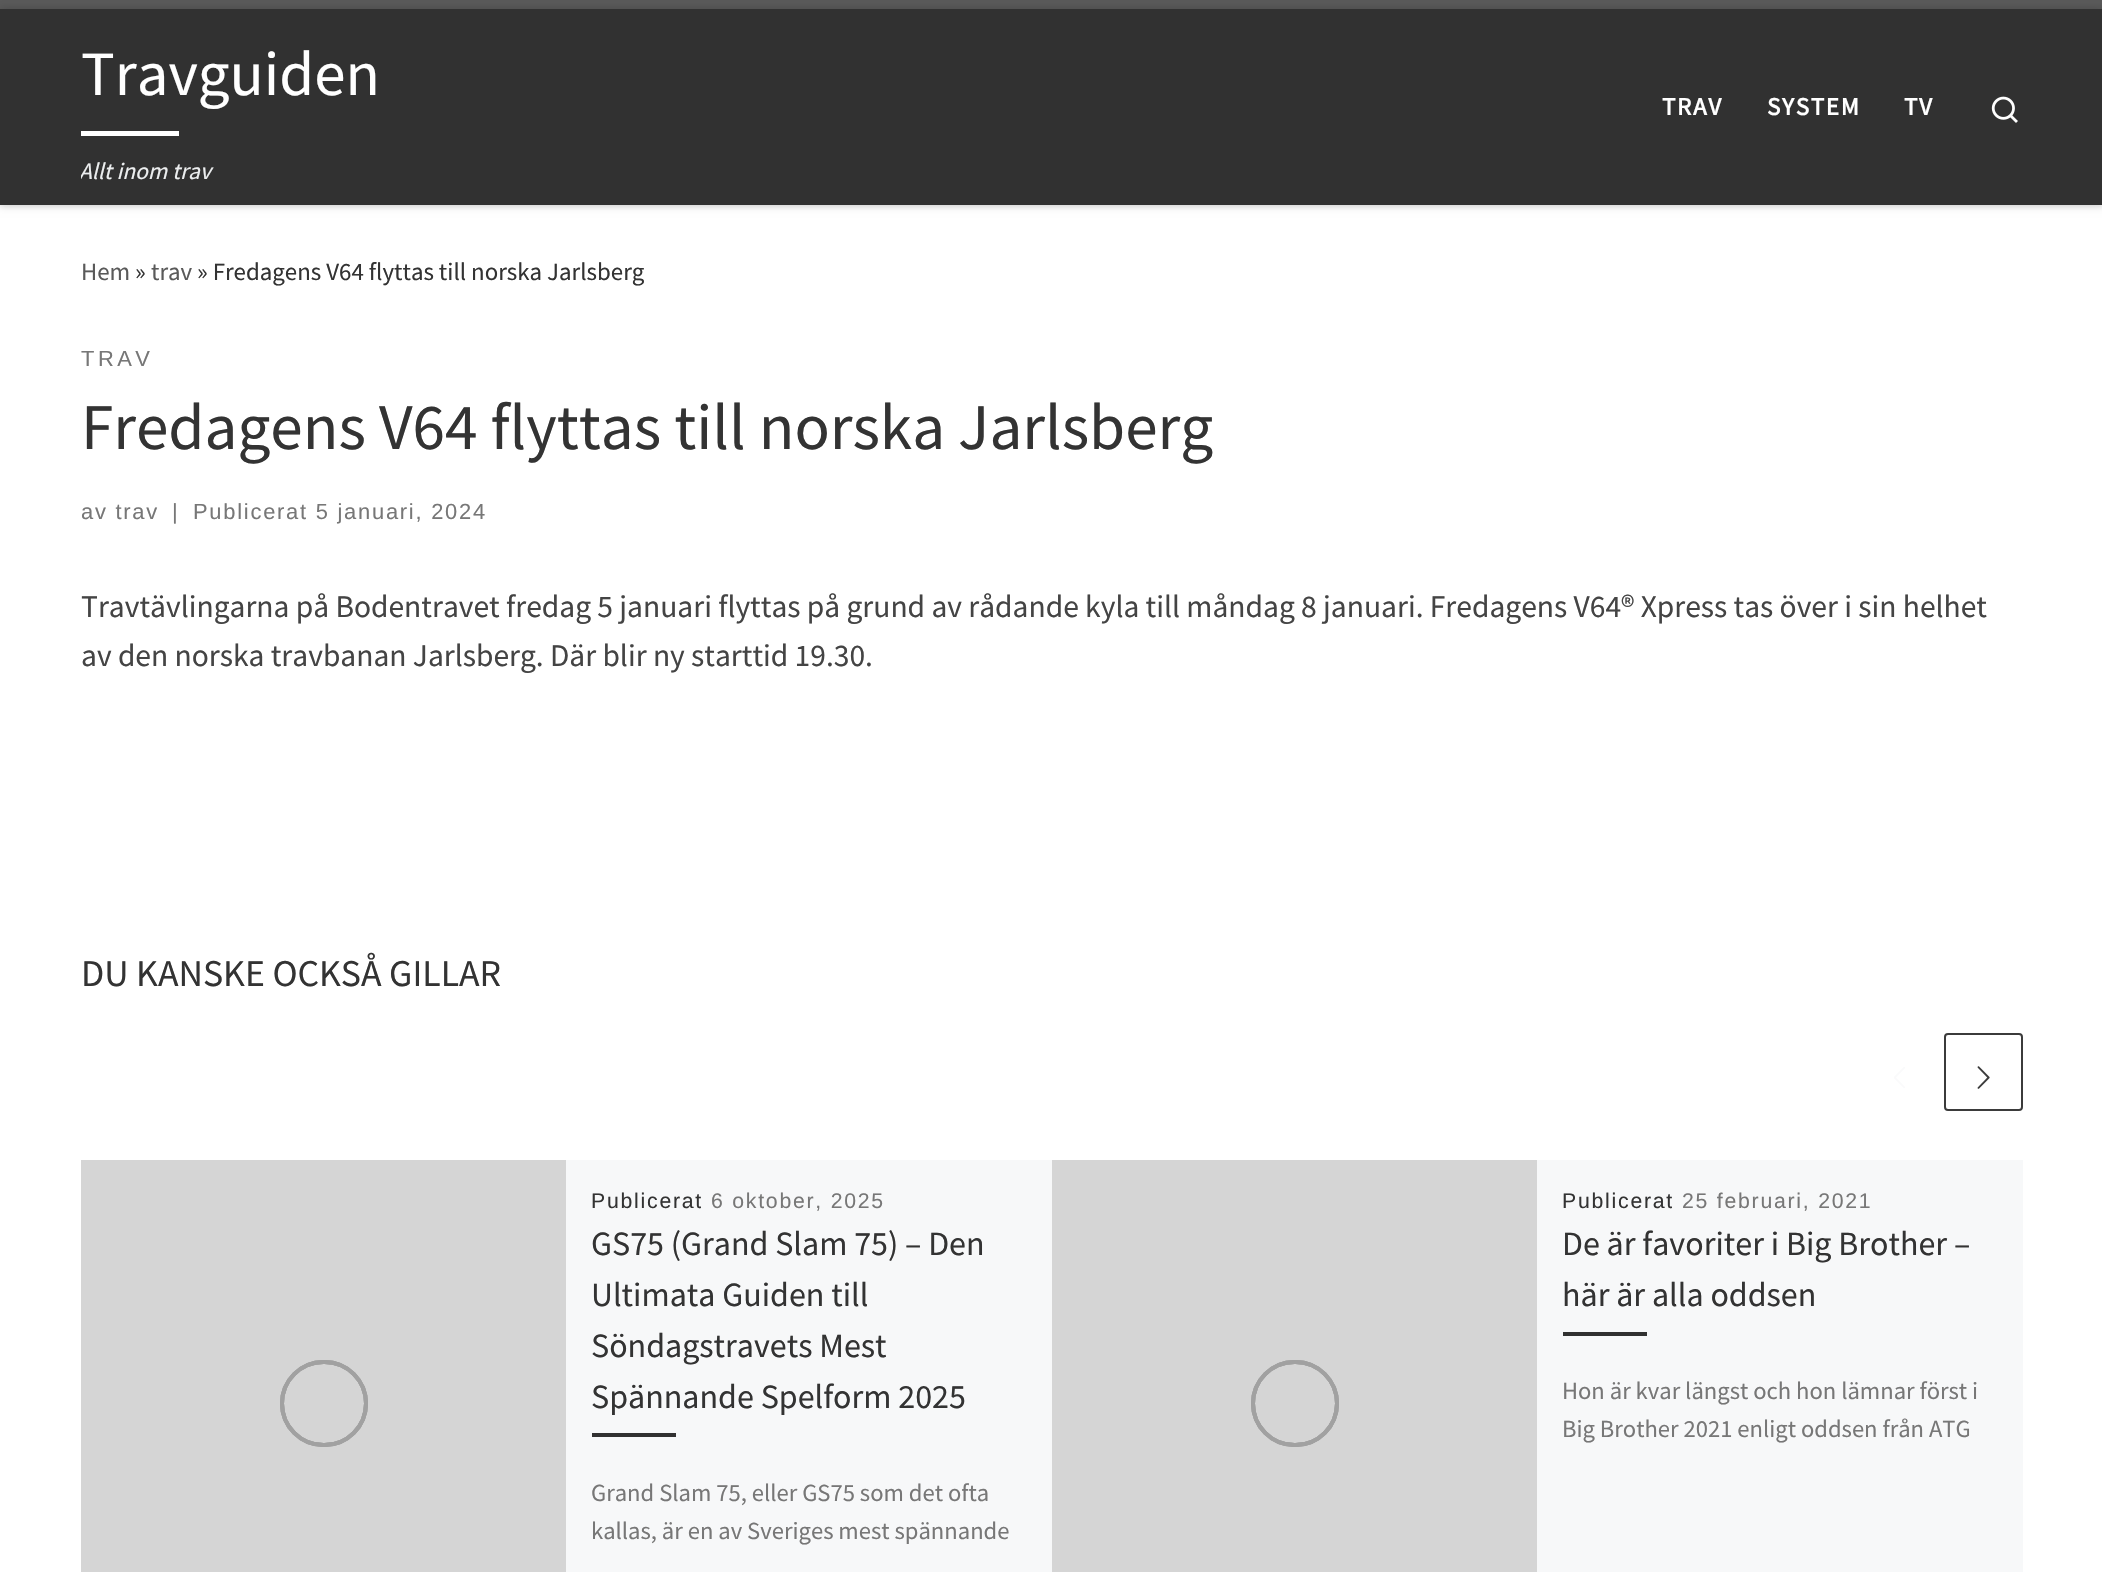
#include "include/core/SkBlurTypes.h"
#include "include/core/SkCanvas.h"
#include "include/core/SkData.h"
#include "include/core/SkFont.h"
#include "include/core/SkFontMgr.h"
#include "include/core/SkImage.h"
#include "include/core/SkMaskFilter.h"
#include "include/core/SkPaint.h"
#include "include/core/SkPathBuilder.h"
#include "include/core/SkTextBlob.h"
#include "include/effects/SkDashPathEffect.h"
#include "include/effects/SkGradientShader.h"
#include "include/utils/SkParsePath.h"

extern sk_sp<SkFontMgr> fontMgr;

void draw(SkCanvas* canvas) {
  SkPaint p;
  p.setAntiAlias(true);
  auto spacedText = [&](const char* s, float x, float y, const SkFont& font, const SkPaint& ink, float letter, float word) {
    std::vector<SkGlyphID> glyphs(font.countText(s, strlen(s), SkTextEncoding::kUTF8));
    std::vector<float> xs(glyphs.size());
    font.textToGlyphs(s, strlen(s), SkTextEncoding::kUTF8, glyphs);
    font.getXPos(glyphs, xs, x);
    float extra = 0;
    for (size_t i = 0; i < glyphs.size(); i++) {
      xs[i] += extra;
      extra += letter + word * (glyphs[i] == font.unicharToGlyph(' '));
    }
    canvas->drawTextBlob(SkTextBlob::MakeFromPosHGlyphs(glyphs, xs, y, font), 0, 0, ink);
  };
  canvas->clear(SK_ColorWHITE);
  p.setColor(SkColorSetARGB(20, 102, 102, 102));
  p.setMaskFilter(SkMaskFilter::MakeBlur(kNormal_SkBlurStyle, 2));
  canvas->drawRect(SkRect::MakeLTRB(0, 4, 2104, 207), p);
  p.setMaskFilter(nullptr);
  p.setColor(SkColorSetRGB(90, 90, 90));
  canvas->drawRect(SkRect::MakeLTRB(0, 0, 2102, 9), p);
  p.setColor(SkColorSetARGB(51, 0, 0, 0));
  p.setMaskFilter(SkMaskFilter::MakeBlur(kNormal_SkBlurStyle, 4.5f));
  canvas->drawRect(SkRect::MakeLTRB(0, 9, 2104, 205), p);
  p.setMaskFilter(nullptr);
  p.setColor(SkColorSetRGB(49, 49, 49));
  canvas->drawRect(SkRect::MakeLTRB(0, 9, 2102, 205), p);
  p.setColor(SK_ColorWHITE);
  canvas->drawRect(SkRect::MakeLTRB(81, 131, 179, 136), p);
  canvas->drawImageRect(SkImages::DeferredFromEncodedData(SkData::MakeFromFileName("images/1.png")), SkRect::MakeLTRB(1991, 96, 2018, 123), SkSamplingOptions());
  canvas->drawImageRect(SkImages::DeferredFromEncodedData(SkData::MakeFromFileName("images/2.png")), SkRect::MakeLTRB(1894, 1067, 1905, 1088), SkSamplingOptions());
  p.setStyle(SkPaint::kStroke_Style);
  p.setStrokeWidth(2);
  p.setColor(SkColorSetRGB(59, 59, 59));
  canvas->drawRoundRect(SkRect::MakeLTRB(1945, 1034, 2022, 1110), 3, 3, p);
  canvas->drawImageRect(SkImages::DeferredFromEncodedData(SkData::MakeFromFileName("images/3.png")), SkRect::MakeLTRB(1977, 1066, 1990, 1089), SkSamplingOptions());
  p.setStyle(SkPaint::kFill_Style);
  p.setColor(SkColorSetRGB(247, 248, 249));
  canvas->drawRect(SkRect::MakeLTRB(566, 1160, 1052, 1572), p);
  p.setColor(SkColorSetRGB(213, 213, 213));
  canvas->drawRect(SkRect::MakeLTRB(81, 1160, 566, 1572), p);
  p.setStyle(SkPaint::kStroke_Style);
  p.setStrokeWidth(4);
  p.setColor(SkColorSetRGB(161, 161, 161));
  canvas->drawRoundRect(SkRect::MakeLTRB(282, 1362, 366, 1445), 41.5f, 41.5f, p);
  canvas->drawRoundRect(SkRect::MakeLTRB(282, 1362, 366, 1445), 41.5f, 41.5f, p);
  canvas->drawRoundRect(SkRect::MakeLTRB(282, 1362, 366, 1445), 41.5f, 41.5f, p);
  p.setStyle(SkPaint::kFill_Style);
  p.setColor(SkColorSetRGB(49, 49, 49));
  canvas->drawRect(SkRect::MakeLTRB(592, 1433, 676, 1437), p);
  p.setColor(SkColorSetRGB(247, 248, 249));
  canvas->drawRect(SkRect::MakeLTRB(1537, 1160, 2023, 1572), p);
  p.setColor(SkColorSetRGB(213, 213, 213));
  canvas->drawRect(SkRect::MakeLTRB(1052, 1160, 1537, 1572), p);
  p.setStyle(SkPaint::kStroke_Style);
  p.setColor(SkColorSetRGB(161, 161, 161));
  canvas->drawRoundRect(SkRect::MakeLTRB(1253, 1362, 1337, 1445), 41.5f, 41.5f, p);
  canvas->drawRoundRect(SkRect::MakeLTRB(1253, 1362, 1337, 1445), 41.5f, 41.5f, p);
  canvas->drawRoundRect(SkRect::MakeLTRB(1253, 1362, 1337, 1445), 41.5f, 41.5f, p);
  p.setStyle(SkPaint::kFill_Style);
  p.setColor(SkColorSetRGB(49, 49, 49));
  canvas->drawRect(SkRect::MakeLTRB(1563, 1332, 1647, 1336), p);
  SkFont font1(fontMgr->matchFamilyStyle("Source Sans Pro", SkFontStyle::Normal()), 63);
  font1.setSubpixel(true);
  p.setColor(SK_ColorWHITE);
  canvas->drawString("Travguiden", 81, 95, font1, p);
  canvas->save();
  canvas->clipRect(SkRect::MakeLTRB(81, 9, 380, 205));
  SkFont font2(fontMgr->matchFamilyStyle("Source Sans Pro", SkFontStyle::Italic()), 23.5f);
  font2.setSubpixel(true);
  p.setColor(SkColorSetRGB(236, 238, 239));
  canvas->drawString("Allt inom trav", 79, 179, font2, p);
  canvas->restore();
  SkFont font3(fontMgr->matchFamilyStyle("Source Sans Pro", SkFontStyle::Bold()), 24.9f);
  font3.setSubpixel(true);
  p.setColor(SK_ColorWHITE);
  spacedText("TRAV", 1662, 115, font3, p, 1.75f, 0);
  spacedText("SYSTEM", 1767, 115, font3, p, 1.75f, 0);
  spacedText("TV", 1904, 115, font3, p, 1.75f, 0);
  SkFont font4(fontMgr->matchFamilyStyle("Source Sans Pro", SkFontStyle::Normal()), 24.9f);
  font4.setSubpixel(true);
  p.setColor(SkColorSetRGB(90, 90, 90));
  canvas->drawString("Hem", 81, 280, font4, p);
  p.setColor(SkColorSetRGB(51, 51, 51));
  canvas->drawString("»", 135, 280, font4, p);
  p.setColor(SkColorSetRGB(90, 90, 90));
  canvas->drawString("trav", 151, 280, font4, p);
  p.setColor(SkColorSetRGB(51, 51, 51));
  canvas->drawString("» Fredagens V64 flyttas till norska Jarlsberg", 197, 280, font4, p);
  SkFont font5(fontMgr->matchFamilyStyle("Liberation Sans", SkFontStyle::Normal()), 21.9f);
  font5.setSubpixel(true);
  p.setColor(SkColorSetRGB(119, 119, 119));
  spacedText("TRAV", 81, 366, font5, p, 3.5f, 0);
  SkFont font6(fontMgr->matchFamilyStyle("Source Sans Pro", SkFontStyle::Normal()), 65.3f);
  font6.setSubpixel(true);
  p.setColor(SkColorSetRGB(51, 51, 51));
  canvas->drawString("Fredagens V64 flyttas till norska Jarlsberg", 81, 449, font6, p);
  p.setColor(SkColorSetRGB(119, 119, 119));
  spacedText("av trav", 81, 519, font5, p, 1.75f, 0);
  spacedText("|", 172, 519, font5, p, 1.75f, 0);
  spacedText("Publicerat 5 januari, 2024", 193, 519, font5, p, 1.75f, 0);
  SkFont font7(fontMgr->matchFamilyStyle("Source Sans Pro", SkFontStyle::Normal()), 31.5f);
  font7.setSubpixel(true);
  p.setColor(SkColorSetRGB(68, 68, 68));
  canvas->drawString("Travtävlingarna på Bodentravet fredag 5 januari flyttas på grund av rådande kyla till måndag 8 januari. Fredagens V64® Xpress tas över i sin helhet", 81, 617, font7, p);
  canvas->drawString("av den norska travbanan Jarlsberg. Där blir ny starttid 19.30.", 81, 666, font7, p);
  SkFont font8(fontMgr->matchFamilyStyle("Source Sans Pro", SkFontStyle::Normal()), 37.75f);
  font8.setSubpixel(true);
  p.setColor(SkColorSetRGB(51, 51, 51));
  canvas->drawString("DU KANSKE OCKSÅ GILLAR", 81, 986, font8, p);
  SkFont font9(fontMgr->matchFamilyStyle("Liberation Sans", SkFontStyle::Normal()), 21.25f);
  font9.setSubpixel(true);
  spacedText("Publicerat", 591, 1208, font9, p, 1.75f, 0);
  p.setColor(SkColorSetRGB(119, 119, 119));
  spacedText("6 oktober, 2025", 711, 1208, font9, p, 1.75f, 0);
  SkFont font10(fontMgr->matchFamilyStyle("Source Sans Pro", SkFontStyle::Normal()), 34);
  font10.setSubpixel(true);
  p.setColor(SkColorSetRGB(51, 51, 51));
  canvas->drawString("GS75 (Grand Slam 75) – Den", 591, 1255, font10, p);
  canvas->drawString("Ultimata Guiden till", 591, 1306, font10, p);
  canvas->drawString("Söndagstravets Mest", 591, 1357, font10, p);
  canvas->drawString("Spännande Spelform 2025", 591, 1408, font10, p);
  SkFont font11(fontMgr->matchFamilyStyle("Source Sans Pro", SkFontStyle::Normal()), 24.6f);
  font11.setSubpixel(true);
  p.setColor(SkColorSetRGB(119, 119, 119));
  canvas->drawString("Grand Slam 75, eller GS75 som det ofta", 591, 1501, font11, p);
  canvas->drawString("kallas, är en av Sveriges mest spännande", 591, 1539, font11, p);
  p.setColor(SkColorSetRGB(51, 51, 51));
  spacedText("Publicerat", 1562, 1208, font9, p, 1.75f, 0);
  p.setColor(SkColorSetRGB(119, 119, 119));
  spacedText("25 februari, 2021", 1682, 1208, font9, p, 1.75f, 0);
  p.setColor(SkColorSetRGB(51, 51, 51));
  canvas->drawString("De är favoriter i Big Brother –", 1562, 1255, font10, p);
  canvas->drawString("här är alla oddsen", 1562, 1306, font10, p);
  p.setColor(SkColorSetRGB(119, 119, 119));
  canvas->drawString("Hon är kvar längst och hon lämnar först i", 1562, 1399, font11, p);
  canvas->drawString("Big Brother 2021 enligt oddsen från ATG", 1562, 1437, font11, p);
}
